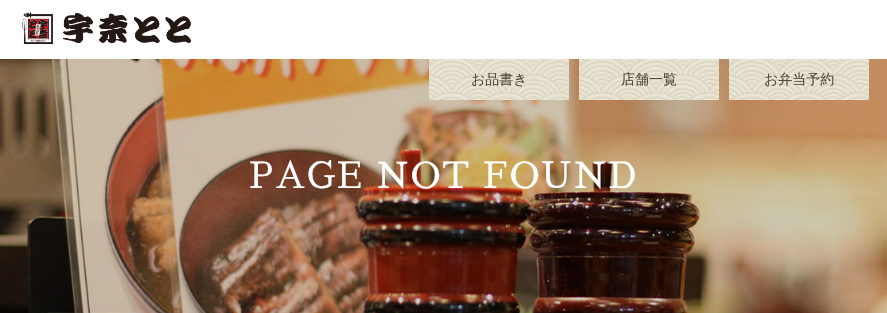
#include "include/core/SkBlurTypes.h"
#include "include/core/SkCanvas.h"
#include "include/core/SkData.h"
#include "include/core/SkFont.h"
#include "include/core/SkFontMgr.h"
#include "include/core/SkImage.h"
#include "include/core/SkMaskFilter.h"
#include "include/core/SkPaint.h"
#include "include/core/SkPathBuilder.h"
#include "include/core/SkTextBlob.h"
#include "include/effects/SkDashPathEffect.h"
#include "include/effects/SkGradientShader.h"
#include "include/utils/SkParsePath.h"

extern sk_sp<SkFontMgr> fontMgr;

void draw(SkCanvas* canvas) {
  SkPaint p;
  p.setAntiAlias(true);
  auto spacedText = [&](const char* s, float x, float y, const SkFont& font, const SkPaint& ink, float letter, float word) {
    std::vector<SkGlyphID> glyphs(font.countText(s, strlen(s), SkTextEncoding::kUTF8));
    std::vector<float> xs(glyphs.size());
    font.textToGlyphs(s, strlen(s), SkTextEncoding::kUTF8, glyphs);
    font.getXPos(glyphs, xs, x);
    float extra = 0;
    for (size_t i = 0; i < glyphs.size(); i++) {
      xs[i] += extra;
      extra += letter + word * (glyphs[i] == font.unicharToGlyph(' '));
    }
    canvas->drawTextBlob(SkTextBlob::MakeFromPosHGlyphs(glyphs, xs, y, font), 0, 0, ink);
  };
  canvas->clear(SK_ColorWHITE);
  canvas->drawImageRect(SkImages::DeferredFromEncodedData(SkData::MakeFromFileName("images/1.png")), SkRect::MakeLTRB(22, 12, 192, 44), SkSamplingOptions());
  canvas->drawImageRect(SkImages::DeferredFromEncodedData(SkData::MakeFromFileName("images/2.png")), SkRect::MakeLTRB(0, 59, 887, 313), SkSamplingOptions());
  canvas->drawImageRect(SkImages::DeferredFromEncodedData(SkData::MakeFromFileName("images/3.png")), SkRect::MakeLTRB(429, 59, 569, 100), SkSamplingOptions());
  canvas->drawImageRect(SkImages::DeferredFromEncodedData(SkData::MakeFromFileName("images/3.png")), SkRect::MakeLTRB(579, 59, 719, 100), SkSamplingOptions());
  canvas->drawImageRect(SkImages::DeferredFromEncodedData(SkData::MakeFromFileName("images/3.png")), SkRect::MakeLTRB(729, 59, 869, 100), SkSamplingOptions());
  SkFont font1(fontMgr->matchFamilyStyle("WenQuanYi Zen Hei", SkFontStyle(500, SkFontStyle::kNormal_Width, SkFontStyle::kUpright_Slant)), 14);
  font1.setSubpixel(true);
  p.setColor(SkColorSetRGB(83, 71, 65));
  canvas->drawString("お品書き", 471, 84, font1, p);
  canvas->drawString("店舗一覧", 621, 84, font1, p);
  canvas->drawString("お弁当予約", 764, 84, font1, p);
  SkFont font2(fontMgr->matchFamilyStyle("Sawarabi Mincho", SkFontStyle::Normal()), 36);
  font2.setSubpixel(true);
  p.setColor(SK_ColorWHITE);
  spacedText("PAGE NOT FOUND", 249, 188, font2, p, 1.4f, 0);
}
